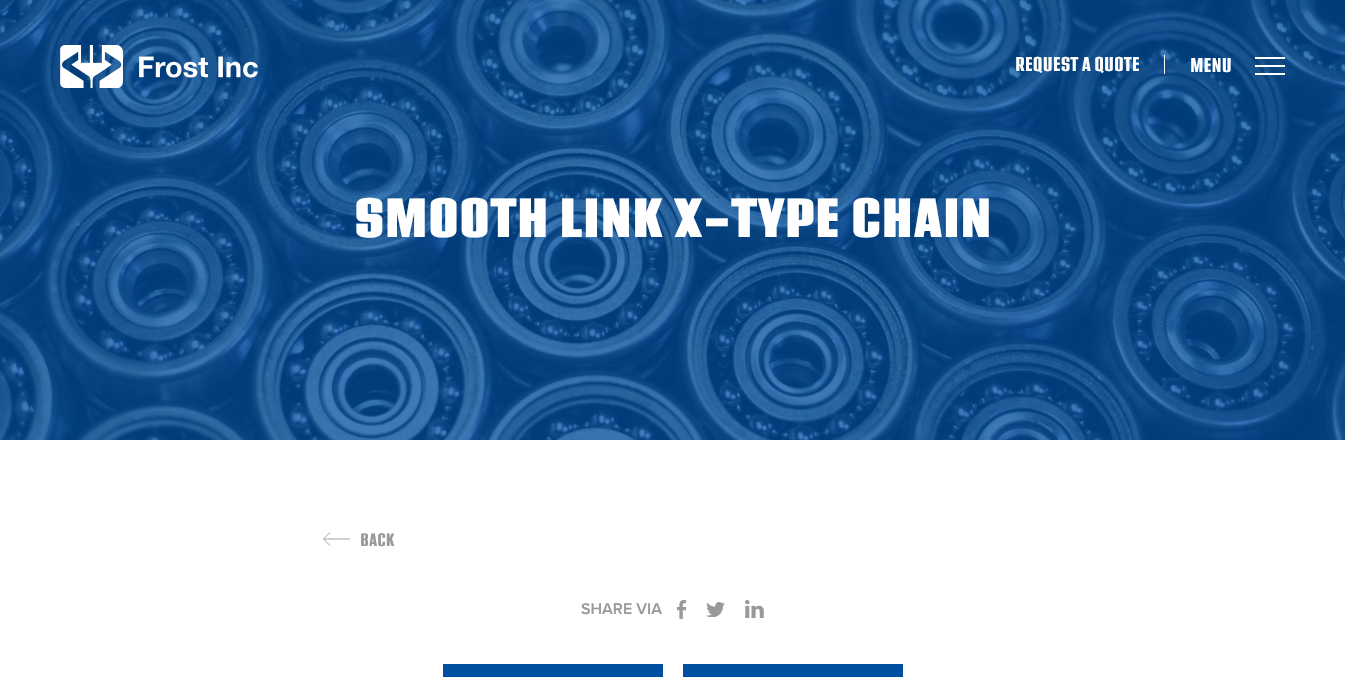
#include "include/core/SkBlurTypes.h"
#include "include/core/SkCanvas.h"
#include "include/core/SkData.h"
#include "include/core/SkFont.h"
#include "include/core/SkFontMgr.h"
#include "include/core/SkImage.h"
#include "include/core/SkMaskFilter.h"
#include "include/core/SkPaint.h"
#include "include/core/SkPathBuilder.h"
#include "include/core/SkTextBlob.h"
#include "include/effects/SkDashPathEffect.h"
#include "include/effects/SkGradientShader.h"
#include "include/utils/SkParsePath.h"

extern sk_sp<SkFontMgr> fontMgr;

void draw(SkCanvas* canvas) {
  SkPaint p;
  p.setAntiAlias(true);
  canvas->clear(SK_ColorWHITE);
  canvas->drawImageRect(SkImages::DeferredFromEncodedData(SkData::MakeFromFileName("images/2.png")), SkRect::MakeLTRB(0, 0, 1345, 440), SkSamplingOptions());
  canvas->drawImageRect(SkImages::DeferredFromEncodedData(SkData::MakeFromFileName("images/1.png")), SkRect::MakeLTRB(60, 45, 258, 88), SkSamplingOptions());
  p.setColor(SK_ColorWHITE);
  canvas->drawRect(SkRect::MakeLTRB(1164, 55, 1165, 74), p);
  canvas->drawRect(SkRect::MakeLTRB(1255, 57, 1285, 59), p);
  canvas->drawRect(SkRect::MakeLTRB(1255, 65, 1285, 67), p);
  canvas->drawRect(SkRect::MakeLTRB(1255, 73, 1285, 75), p);
  p.setStyle(SkPaint::kStroke_Style);
  p.setStrokeWidth(0.9f);
  p.setColor(SkColorSetRGB(153, 153, 153));
  canvas->drawPath(SkPathBuilder().moveTo(330, 532.5f).lineTo(323.5f, 539).lineTo(330, 545.5f).moveTo(324, 539).lineTo(350, 539).detach(), p);
  canvas->drawImageRect(SkImages::DeferredFromEncodedData(SkData::MakeFromFileName("images/3.png")), SkRect::MakeLTRB(677, 600, 686, 619), SkSamplingOptions());
  canvas->drawImageRect(SkImages::DeferredFromEncodedData(SkData::MakeFromFileName("images/4.png")), SkRect::MakeLTRB(706, 602, 725, 617), SkSamplingOptions());
  canvas->drawImageRect(SkImages::DeferredFromEncodedData(SkData::MakeFromFileName("images/5.png")), SkRect::MakeLTRB(745, 600, 764, 618), SkSamplingOptions());
  p.setStyle(SkPaint::kFill_Style);
  p.setColor(SkColorSetRGB(0, 79, 161));
  canvas->drawRect(SkRect::MakeLTRB(443, 664, 663, 677), p);
  canvas->drawRect(SkRect::MakeLTRB(683, 664, 903, 677), p);
  SkFont font1(fontMgr->matchFamilyStyle("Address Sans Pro", SkFontStyle::Bold()), 20);
  font1.setSubpixel(true);
  p.setColor(SK_ColorWHITE);
  canvas->drawString("REQUEST A QUOTE", 1015, 71, font1, p);
  canvas->drawString("MENU", 1190, 72, font1, p);
  SkFont font2(fontMgr->matchFamilyStyle("Address Sans Pro", SkFontStyle(900, SkFontStyle::kNormal_Width, SkFontStyle::kUpright_Slant)), 55);
  font2.setSubpixel(true);
  canvas->drawString("SMOOTH LINK X-TYPE CHAIN", 354, 237, font2, p);
  SkFont font3(fontMgr->matchFamilyStyle("Address Sans Pro", SkFontStyle::Bold()), 18);
  font3.setSubpixel(true);
  p.setColor(SkColorSetRGB(153, 153, 153));
  canvas->drawString("BACK", 360, 546, font3, p);
  SkFont font4(fontMgr->matchFamilyStyle("Proxima Nova", SkFontStyle(600, SkFontStyle::kNormal_Width, SkFontStyle::kUpright_Slant)), 16);
  font4.setSubpixel(true);
  canvas->drawString("SHARE VIA", 581, 614, font4, p);
}
